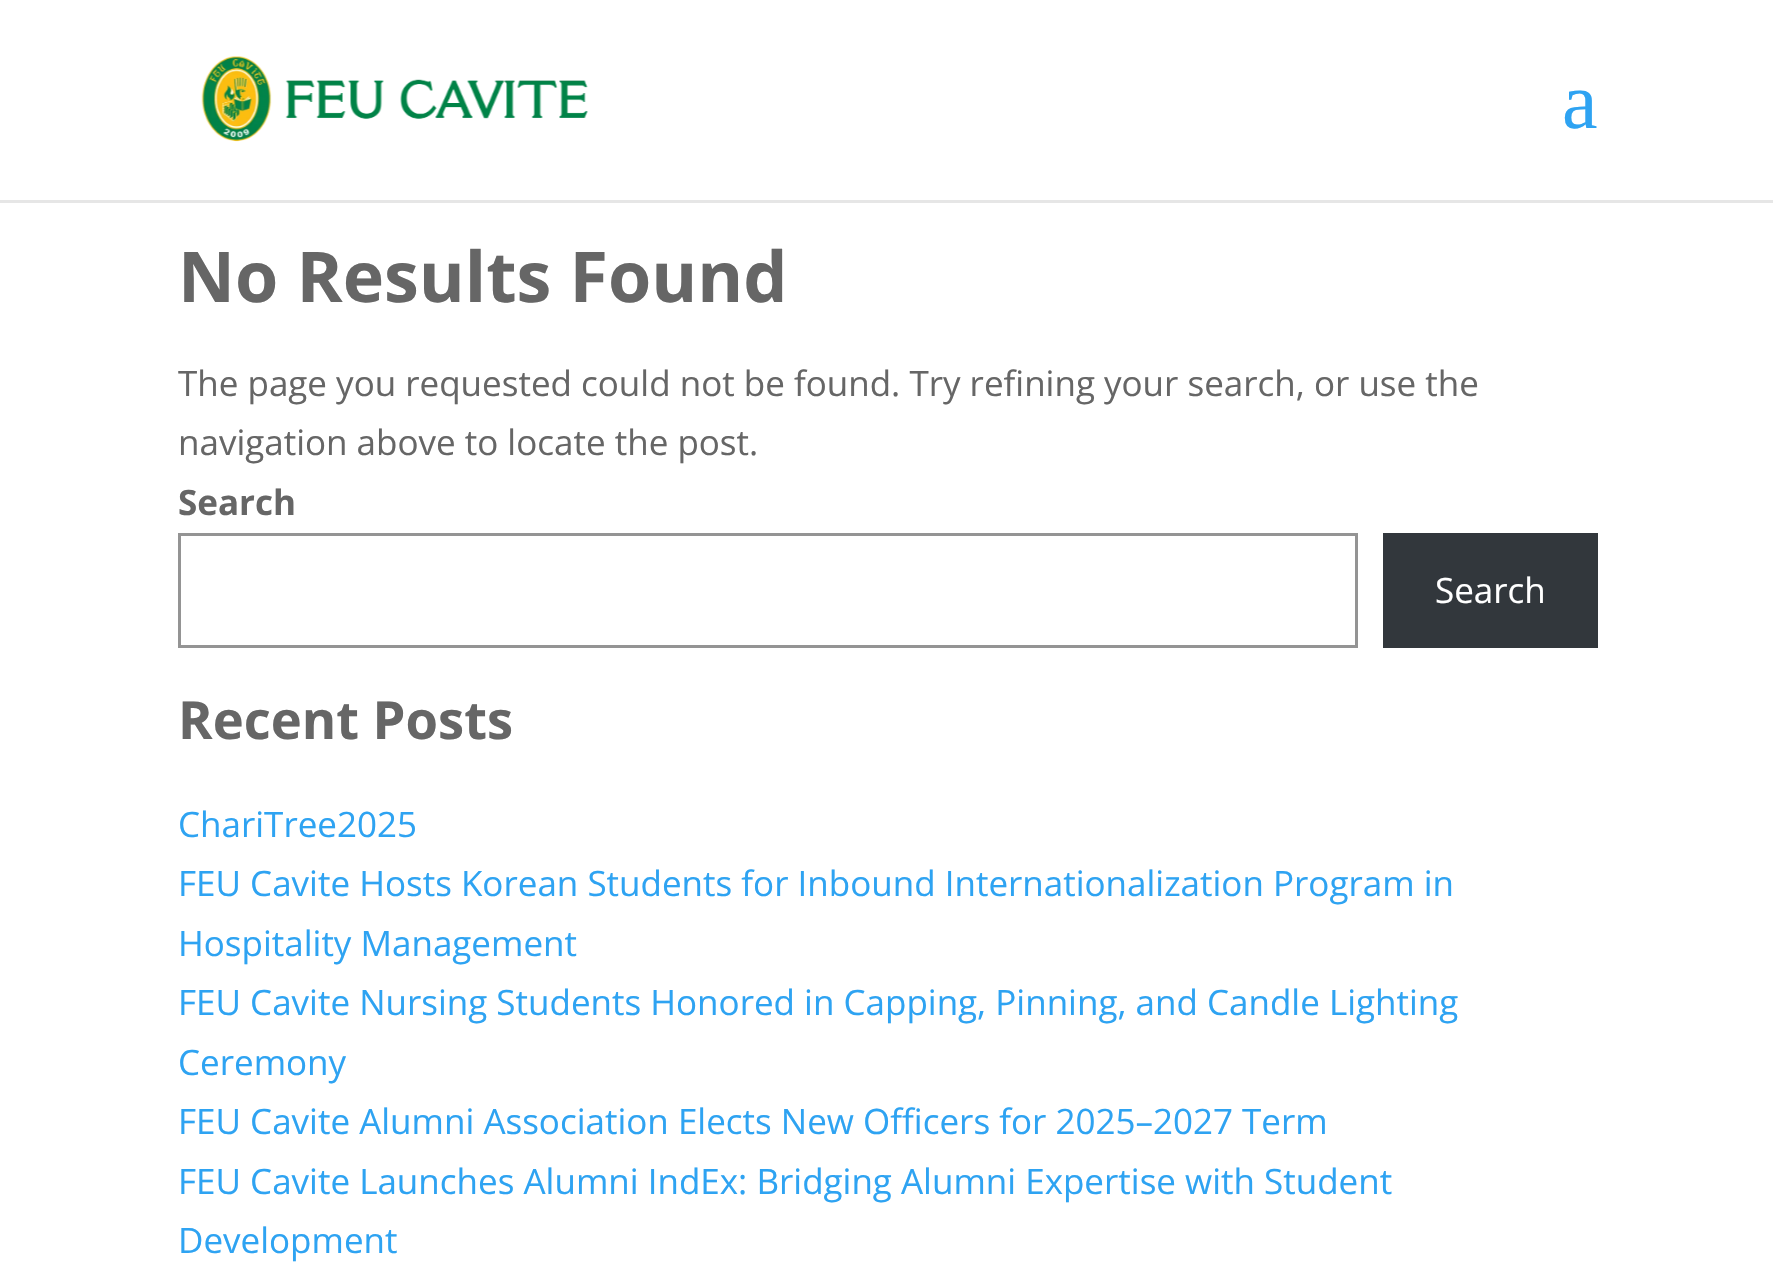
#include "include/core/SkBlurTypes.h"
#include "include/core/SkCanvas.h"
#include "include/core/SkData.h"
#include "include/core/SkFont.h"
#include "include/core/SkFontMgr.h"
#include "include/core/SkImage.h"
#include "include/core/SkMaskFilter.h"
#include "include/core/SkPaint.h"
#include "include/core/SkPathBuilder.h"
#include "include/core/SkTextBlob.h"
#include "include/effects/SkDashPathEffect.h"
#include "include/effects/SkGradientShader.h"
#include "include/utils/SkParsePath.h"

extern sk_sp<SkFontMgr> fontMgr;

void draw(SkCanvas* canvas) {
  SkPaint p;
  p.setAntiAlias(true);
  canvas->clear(SK_ColorWHITE);
  p.setColor(SkColorSetRGB(230, 230, 230));
  canvas->drawRect(SkRect::MakeLTRB(0, 200, 1773, 203), p);
  canvas->drawImageRect(SkImages::DeferredFromEncodedData(SkData::MakeFromFileName("images/1.png")), SkRect::MakeLTRB(201, 56, 588, 142), SkSamplingOptions());
  p.setStyle(SkPaint::kStroke_Style);
  p.setStrokeWidth(3);
  p.setColor(SkColorSetRGB(148, 148, 148));
  canvas->drawRect(SkRect::MakeLTRB(179.5f, 534.5f, 1356.5f, 646.5f), p);
  p.setStyle(SkPaint::kFill_Style);
  p.setColor(SkColorSetRGB(50, 55, 60));
  canvas->drawRect(SkRect::MakeLTRB(1383, 533, 1598, 648), p);
  SkFont font1(fontMgr->matchFamilyStyle("Liberation Serif", SkFontStyle::Normal()), 80);
  font1.setSubpixel(true);
  p.setColor(SkColorSetRGB(46, 163, 242));
  canvas->drawString("a", 1562, 128, font1, p);
  SkFont font2(fontMgr->matchFamilyStyle("Open Sans", SkFontStyle::Bold()), 70);
  font2.setSubpixel(true);
  p.setColor(SkColorSetRGB(102, 102, 102));
  canvas->drawString("No Results Found", 178, 302, font2, p);
  SkFont font3(fontMgr->matchFamilyStyle("Open Sans", SkFontStyle::Normal()), 35);
  font3.setSubpixel(true);
  canvas->drawString("The page you requested could not be found. Try refining your search, or use the", 178, 396, font3, p);
  canvas->drawString("navigation above to locate the post.", 178, 455, font3, p);
  SkFont font4(fontMgr->matchFamilyStyle("Open Sans", SkFontStyle::Bold()), 35);
  font4.setSubpixel(true);
  canvas->drawString("Search", 178, 515, font4, p);
  p.setColor(SK_ColorWHITE);
  canvas->drawString("Search", 1435, 603, font3, p);
  SkFont font5(fontMgr->matchFamilyStyle("Open Sans", SkFontStyle::Bold()), 52.5f);
  font5.setSubpixel(true);
  p.setColor(SkColorSetRGB(102, 102, 102));
  canvas->drawString("Recent Posts", 178, 739, font5, p);
  p.setColor(SkColorSetRGB(46, 163, 242));
  canvas->drawString("ChariTree2025", 178, 837, font3, p);
  canvas->drawString("FEU Cavite Hosts Korean Students for Inbound Internationalization Program in", 178, 896, font3, p);
  canvas->drawString("Hospitality Management", 178, 956, font3, p);
  canvas->drawString("FEU Cavite Nursing Students Honored in Capping, Pinning, and Candle Lighting", 178, 1015, font3, p);
  canvas->drawString("Ceremony", 178, 1075, font3, p);
  canvas->drawString("FEU Cavite Alumni Association Elects New Officers for 2025–2027 Term", 178, 1134, font3, p);
  canvas->drawString("FEU Cavite Launches Alumni IndEx: Bridging Alumni Expertise with Student", 178, 1194, font3, p);
  canvas->drawString("Development", 178, 1253, font3, p);
}
